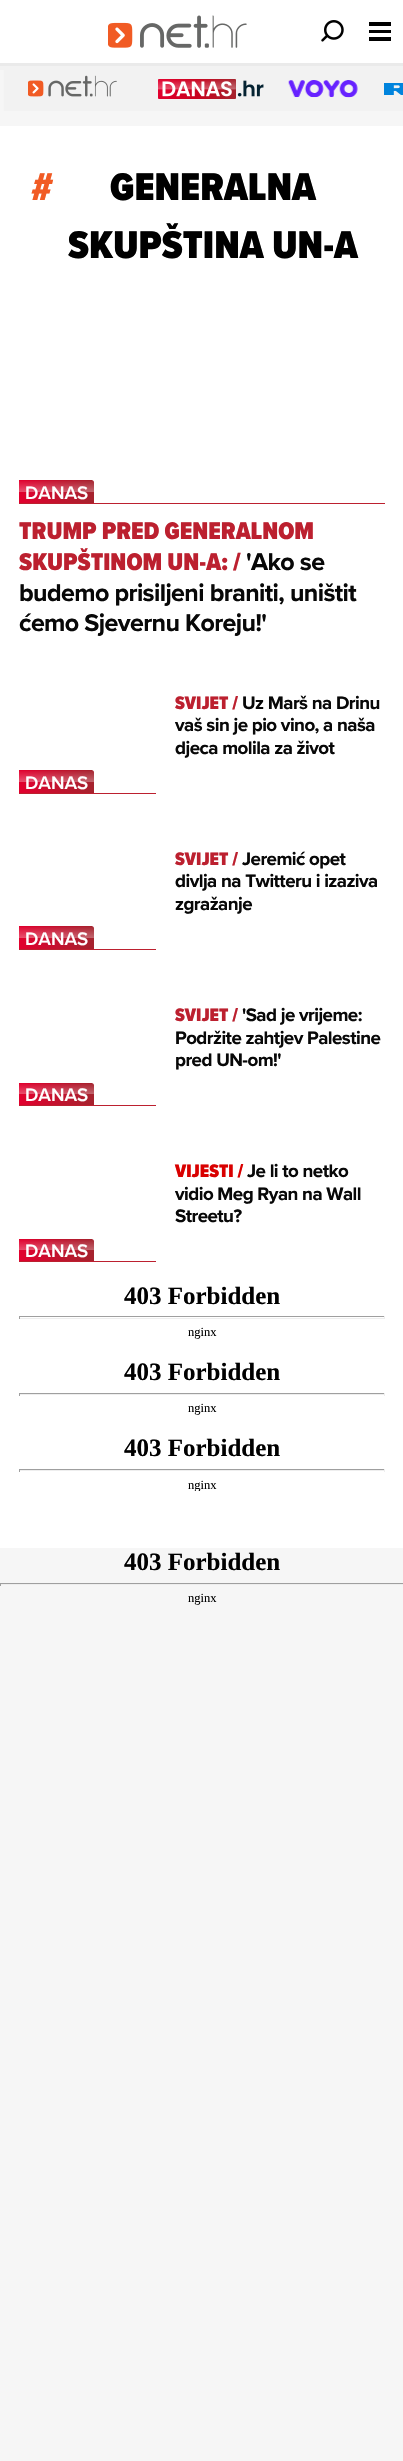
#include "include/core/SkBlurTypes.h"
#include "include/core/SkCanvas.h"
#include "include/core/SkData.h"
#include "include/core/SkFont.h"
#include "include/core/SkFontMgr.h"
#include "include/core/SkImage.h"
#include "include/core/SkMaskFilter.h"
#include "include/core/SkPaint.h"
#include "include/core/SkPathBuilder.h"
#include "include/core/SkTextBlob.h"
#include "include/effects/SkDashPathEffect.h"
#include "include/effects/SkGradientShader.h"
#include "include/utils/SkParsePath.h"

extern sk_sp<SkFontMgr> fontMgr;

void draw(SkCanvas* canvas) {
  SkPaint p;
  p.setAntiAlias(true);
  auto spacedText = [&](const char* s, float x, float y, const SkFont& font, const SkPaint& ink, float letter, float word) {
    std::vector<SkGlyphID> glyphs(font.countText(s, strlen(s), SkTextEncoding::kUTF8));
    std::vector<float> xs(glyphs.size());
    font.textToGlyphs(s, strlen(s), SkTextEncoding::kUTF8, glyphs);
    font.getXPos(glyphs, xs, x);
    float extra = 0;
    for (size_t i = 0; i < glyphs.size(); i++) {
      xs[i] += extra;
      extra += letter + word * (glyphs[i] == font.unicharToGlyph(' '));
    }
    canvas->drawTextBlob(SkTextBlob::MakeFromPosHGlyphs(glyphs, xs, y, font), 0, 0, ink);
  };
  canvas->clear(SkColorSetRGB(246, 246, 246));
  p.setColor(SkColorSetRGB(242, 242, 242));
  canvas->drawPath(SkPathBuilder().moveTo(0, 62).lineTo(0, 111).lineTo(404, 111).lineTo(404, 49).lineTo(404, 62).close().detach(), p);
  p.setColor(SkColorSetRGB(234, 234, 234));
  canvas->drawPath(SkPathBuilder().moveTo(0, 62).lineTo(0, 66).lineTo(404, 66).lineTo(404, 4).lineTo(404, 62).close().detach(), p);
  p.setColor(SK_ColorWHITE);
  canvas->drawRect(SkRect::MakeLTRB(0, 0, 403, 63), p);
  canvas->drawImageRect(SkImages::DeferredFromEncodedData(SkData::MakeFromFileName("images/1.png")), SkRect::MakeLTRB(108, 15, 247, 48), SkSamplingOptions());
  canvas->drawImageRect(SkImages::DeferredFromEncodedData(SkData::MakeFromFileName("images/2.png")), SkRect::MakeLTRB(321, 20, 344, 42), SkSamplingOptions());
  p.setColor(SK_ColorBLACK);
  canvas->drawRect(SkRect::MakeLTRB(369, 22, 391, 26), p);
  canvas->drawRect(SkRect::MakeLTRB(369, 30, 391, 33), p);
  canvas->drawRect(SkRect::MakeLTRB(369, 37, 391, 41), p);
  {
    const SkColor colors[] = {SkColorSetRGB(246, 246, 246), SkColorSetARGB(0, 246, 246, 246)};
    const float stops[] = {0, 1};
    const SkPoint ends[] = {{0, 91}, {13, 91}};
    p.setShader(SkGradientShader::MakeLinear(ends, colors, stops, 2, SkTileMode::kClamp));
    p.setAlpha(255);
  }
  canvas->drawRect(SkRect::MakeLTRB(0, 70, 4, 111), p);
  canvas->drawImageRect(SkImages::DeferredFromEncodedData(SkData::MakeFromFileName("images/3.png")), SkRect::MakeLTRB(28, 75, 117, 97), SkSamplingOptions());
  canvas->drawImageRect(SkImages::DeferredFromEncodedData(SkData::MakeFromFileName("images/4.png")), SkRect::MakeLTRB(158, 79, 264, 99), SkSamplingOptions());
  canvas->drawImageRect(SkImages::DeferredFromEncodedData(SkData::MakeFromFileName("images/5.png")), SkRect::MakeLTRB(288, 80, 358, 98), SkSamplingOptions());
  canvas->drawImageRect(SkImages::DeferredFromEncodedData(SkData::MakeFromFileName("images/6.png")), SkRect::MakeLTRB(384, 83, 403, 95), SkSamplingOptions());
  p.setShader(nullptr);
  p.setColor(SK_ColorWHITE);
  canvas->drawRect(SkRect::MakeLTRB(0, 126, 403, 1548), p);
  p.setColor(SkColorSetRGB(188, 32, 47));
  canvas->drawRect(SkRect::MakeLTRB(19, 503, 385, 504), p);
  {
    const SkColor colors[] = {SkColorSetRGB(226, 0, 46), SkColorSetRGB(165, 35, 46)};
    const float stops[] = {0, 1};
    const SkPoint ends[] = {{19, 491}, {94, 491}};
    p.setShader(SkGradientShader::MakeLinear(ends, colors, stops, 2, SkTileMode::kClamp));
    p.setAlpha(255);
  }
  canvas->drawPath(SkPathBuilder().moveTo(19, 480).lineTo(91.5f, 480).cubicTo(93, 480, 94, 481, 94, 482.5f).lineTo(94, 503).lineTo(19, 503).close().detach(), p);
  {
    const SkColor colors[] = {SkColorSetARGB(0, 255, 255, 255), SkColorSetARGB(0, 255, 255, 255), SkColorSetARGB(77, 255, 255, 255), SkColorSetARGB(0, 255, 255, 255)};
    const float stops[] = {0, 0.49f, 0.5f, 1};
    const SkPoint ends[] = {{56, 503}, {56, 480}};
    p.setShader(SkGradientShader::MakeLinear(ends, colors, stops, 4, SkTileMode::kClamp));
    p.setAlpha(255);
  }
  canvas->drawRect(SkRect::MakeLTRB(19, 481, 94, 492), p);
  p.setShader(nullptr);
  p.setColor(SkColorSetRGB(188, 32, 47));
  canvas->drawRect(SkRect::MakeLTRB(19, 793, 156, 794), p);
  {
    const SkColor colors[] = {SkColorSetRGB(226, 0, 46), SkColorSetRGB(165, 35, 46)};
    const float stops[] = {0, 1};
    const SkPoint ends[] = {{19, 781}, {94, 781}};
    p.setShader(SkGradientShader::MakeLinear(ends, colors, stops, 2, SkTileMode::kClamp));
    p.setAlpha(255);
  }
  canvas->drawPath(SkPathBuilder().moveTo(19, 770).lineTo(91.5f, 770).cubicTo(93, 770, 94, 771, 94, 772.5f).lineTo(94, 793).lineTo(19, 793).close().detach(), p);
  {
    const SkColor colors[] = {SkColorSetARGB(0, 255, 255, 255), SkColorSetARGB(0, 255, 255, 255), SkColorSetARGB(77, 255, 255, 255), SkColorSetARGB(0, 255, 255, 255)};
    const float stops[] = {0, 0.49f, 0.5f, 1};
    const SkPoint ends[] = {{56, 793}, {56, 770}};
    p.setShader(SkGradientShader::MakeLinear(ends, colors, stops, 4, SkTileMode::kClamp));
    p.setAlpha(255);
  }
  canvas->drawRect(SkRect::MakeLTRB(19, 771, 94, 782), p);
  p.setShader(nullptr);
  p.setColor(SkColorSetRGB(188, 32, 47));
  canvas->drawRect(SkRect::MakeLTRB(19, 949, 156, 950), p);
  {
    const SkColor colors[] = {SkColorSetRGB(226, 0, 46), SkColorSetRGB(165, 35, 46)};
    const float stops[] = {0, 1};
    const SkPoint ends[] = {{19, 938}, {94, 938}};
    p.setShader(SkGradientShader::MakeLinear(ends, colors, stops, 2, SkTileMode::kClamp));
    p.setAlpha(255);
  }
  canvas->drawPath(SkPathBuilder().moveTo(19, 926).lineTo(91.5f, 926).cubicTo(93, 926, 94, 927, 94, 928.5f).lineTo(94, 949).lineTo(19, 949).close().detach(), p);
  {
    const SkColor colors[] = {SkColorSetARGB(0, 255, 255, 255), SkColorSetARGB(0, 255, 255, 255), SkColorSetARGB(77, 255, 255, 255), SkColorSetARGB(0, 255, 255, 255)};
    const float stops[] = {0, 0.49f, 0.5f, 1};
    const SkPoint ends[] = {{56, 949}, {56, 926}};
    p.setShader(SkGradientShader::MakeLinear(ends, colors, stops, 4, SkTileMode::kClamp));
    p.setAlpha(255);
  }
  canvas->drawRect(SkRect::MakeLTRB(19, 927, 94, 938), p);
  p.setShader(nullptr);
  p.setColor(SkColorSetRGB(188, 32, 47));
  canvas->drawRect(SkRect::MakeLTRB(19, 1105, 156, 1106), p);
  {
    const SkColor colors[] = {SkColorSetRGB(226, 0, 46), SkColorSetRGB(165, 35, 46)};
    const float stops[] = {0, 1};
    const SkPoint ends[] = {{19, 1094}, {94, 1094}};
    p.setShader(SkGradientShader::MakeLinear(ends, colors, stops, 2, SkTileMode::kClamp));
    p.setAlpha(255);
  }
  canvas->drawPath(SkPathBuilder().moveTo(19, 1083).lineTo(91.5f, 1083).cubicTo(93, 1083, 94, 1084, 94, 1085.5f).lineTo(94, 1105).lineTo(19, 1105).close().detach(), p);
  {
    const SkColor colors[] = {SkColorSetARGB(0, 255, 255, 255), SkColorSetARGB(0, 255, 255, 255), SkColorSetARGB(77, 255, 255, 255), SkColorSetARGB(0, 255, 255, 255)};
    const float stops[] = {0, 0.49f, 0.5f, 1};
    const SkPoint ends[] = {{56, 1105}, {56, 1083}};
    p.setShader(SkGradientShader::MakeLinear(ends, colors, stops, 4, SkTileMode::kClamp));
    p.setAlpha(255);
  }
  canvas->drawRect(SkRect::MakeLTRB(19, 1084, 94, 1094), p);
  p.setShader(nullptr);
  p.setColor(SkColorSetRGB(188, 32, 47));
  canvas->drawRect(SkRect::MakeLTRB(19, 1261, 156, 1262), p);
  {
    const SkColor colors[] = {SkColorSetRGB(226, 0, 46), SkColorSetRGB(165, 35, 46)};
    const float stops[] = {0, 1};
    const SkPoint ends[] = {{19, 1250}, {94, 1250}};
    p.setShader(SkGradientShader::MakeLinear(ends, colors, stops, 2, SkTileMode::kClamp));
    p.setAlpha(255);
  }
  canvas->drawPath(SkPathBuilder().moveTo(19, 1239).lineTo(91.5f, 1239).cubicTo(93, 1239, 94, 1240, 94, 1241.5f).lineTo(94, 1261).lineTo(19, 1261).close().detach(), p);
  {
    const SkColor colors[] = {SkColorSetARGB(0, 255, 255, 255), SkColorSetARGB(0, 255, 255, 255), SkColorSetARGB(77, 255, 255, 255), SkColorSetARGB(0, 255, 255, 255)};
    const float stops[] = {0, 0.49f, 0.5f, 1};
    const SkPoint ends[] = {{56, 1261}, {56, 1239}};
    p.setShader(SkGradientShader::MakeLinear(ends, colors, stops, 4, SkTileMode::kClamp));
    p.setAlpha(255);
  }
  canvas->drawRect(SkRect::MakeLTRB(19, 1240, 94, 1250), p);
  p.setShader(nullptr);
  p.setColor(SkColorSetRGB(159, 159, 159));
  canvas->drawRect(SkRect::MakeLTRB(19, 1316, 385, 1317), p);
  p.setColor(SkColorSetRGB(238, 238, 238));
  canvas->drawRect(SkRect::MakeLTRB(384, 1316, 385, 1319), p);
  canvas->drawRect(SkRect::MakeLTRB(19, 1318, 385, 1319), p);
  p.setColor(SkColorSetRGB(159, 159, 159));
  canvas->drawRect(SkRect::MakeLTRB(19, 1316, 20, 1319), p);
  canvas->drawRect(SkRect::MakeLTRB(19, 1393, 385, 1394), p);
  p.setColor(SkColorSetRGB(238, 238, 238));
  canvas->drawRect(SkRect::MakeLTRB(384, 1393, 385, 1396), p);
  canvas->drawRect(SkRect::MakeLTRB(19, 1394, 385, 1395), p);
  p.setColor(SkColorSetRGB(159, 159, 159));
  canvas->drawRect(SkRect::MakeLTRB(19, 1393, 20, 1396), p);
  canvas->drawRect(SkRect::MakeLTRB(19, 1469, 385, 1470), p);
  p.setColor(SkColorSetRGB(238, 238, 238));
  canvas->drawRect(SkRect::MakeLTRB(384, 1469, 385, 1472), p);
  canvas->drawRect(SkRect::MakeLTRB(19, 1470, 385, 1471), p);
  p.setColor(SkColorSetRGB(159, 159, 159));
  canvas->drawRect(SkRect::MakeLTRB(19, 1469, 20, 1472), p);
  canvas->drawRect(SkRect::MakeLTRB(0, 1583, 403, 1584), p);
  p.setColor(SkColorSetRGB(238, 238, 238));
  canvas->drawRect(SkRect::MakeLTRB(0, 1584, 403, 1585), p);
  p.setColor(SkColorSetRGB(159, 159, 159));
  canvas->drawRect(SkRect::MakeLTRB(0, 1583, 1, 1586), p);
  SkFont font1(fontMgr->matchFamilyStyle("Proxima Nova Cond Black", SkFontStyle(900, SkFontStyle::kNormal_Width, SkFontStyle::kUpright_Slant)), 40);
  font1.setSubpixel(true);
  p.setColor(SkColorSetRGB(241, 91, 36));
  canvas->drawString("#", 31, 200, font1, p);
  p.setColor(SK_ColorBLACK);
  canvas->drawString("GENERALNA", 110, 200, font1, p);
  canvas->drawString("SKUPŠTINA UN-A", 68, 258, font1, p);
  SkFont font2(fontMgr->matchFamilyStyle("Proxima Nova", SkFontStyle(600, SkFontStyle::kNormal_Width, SkFontStyle::kUpright_Slant)), 18.75f);
  font2.setSubpixel(true);
  p.setColor(SK_ColorWHITE);
  canvas->drawString("DANAS", 25, 499, font2, p);
  SkFont font3(fontMgr->matchFamilyStyle("Proxima Nova Cond Black", SkFontStyle(900, SkFontStyle::kNormal_Width, SkFontStyle::kUpright_Slant)), 25);
  font3.setSubpixel(true);
  p.setColor(SkColorSetRGB(188, 32, 47));
  canvas->drawString("TRUMP PRED GENERALNOM", 19, 539, font3, p);
  canvas->drawString("SKUPŠTINOM UN-A: /", 19, 570, font3, p);
  SkFont font4(fontMgr->matchFamilyStyle("Proxima Nova", SkFontStyle::Bold()), 25);
  font4.setSubpixel(true);
  p.setColor(SkColorSetRGB(8, 8, 8));
  spacedText("'Ako se", 246, 570, font4, p, -0.6f, 0);
  spacedText("budemo prisiljeni braniti, uništit", 19, 601, font4, p, -0.6f, 0);
  spacedText("ćemo Sjevernu Koreju!'", 19, 631, font4, p, -0.6f, 0);
  SkFont font5(fontMgr->matchFamilyStyle("Proxima Nova Cond Black", SkFontStyle(900, SkFontStyle::kNormal_Width, SkFontStyle::kUpright_Slant)), 18.75f);
  font5.setSubpixel(true);
  p.setColor(SkColorSetRGB(188, 32, 47));
  canvas->drawString("SVIJET /", 175, 709, font5, p);
  SkFont font6(fontMgr->matchFamilyStyle("Proxima Nova", SkFontStyle::Bold()), 18.75f);
  font6.setSubpixel(true);
  p.setColor(SkColorSetRGB(8, 8, 8));
  spacedText("Uz Marš na Drinu", 242, 709, font6, p, -0.55f, 0);
  spacedText("vaš sin je pio vino, a naša", 175, 731, font6, p, -0.55f, 0);
  spacedText("djeca molila za život", 175, 754, font6, p, -0.55f, 0);
  p.setColor(SK_ColorWHITE);
  canvas->drawString("DANAS", 25, 789, font2, p);
  p.setColor(SkColorSetRGB(188, 32, 47));
  canvas->drawString("SVIJET /", 175, 865, font5, p);
  p.setColor(SkColorSetRGB(8, 8, 8));
  spacedText("Jeremić opet", 242, 865, font6, p, -0.55f, 0);
  spacedText("divlja na Twitteru i izaziva", 175, 887, font6, p, -0.55f, 0);
  spacedText("zgražanje", 175, 910, font6, p, -0.55f, 0);
  p.setColor(SK_ColorWHITE);
  canvas->drawString("DANAS", 25, 945, font2, p);
  p.setColor(SkColorSetRGB(188, 32, 47));
  canvas->drawString("SVIJET /", 175, 1021, font5, p);
  p.setColor(SkColorSetRGB(8, 8, 8));
  spacedText("'Sad je vrijeme:", 242, 1021, font6, p, -0.55f, 0);
  spacedText("Podržite zahtjev Palestine", 175, 1044, font6, p, -0.55f, 0);
  spacedText("pred UN-om!'", 175, 1066, font6, p, -0.55f, 0);
  p.setColor(SK_ColorWHITE);
  canvas->drawString("DANAS", 25, 1101, font2, p);
  p.setColor(SkColorSetRGB(217, 0, 0));
  canvas->drawString("VIJESTI /", 175, 1177, font5, p);
  p.setColor(SkColorSetRGB(8, 8, 8));
  spacedText("Je li to netko", 247, 1177, font6, p, -0.55f, 0);
  spacedText("vidio Meg Ryan na Wall", 175, 1200, font6, p, -0.55f, 0);
  spacedText("Streetu?", 175, 1222, font6, p, -0.55f, 0);
  p.setColor(SK_ColorWHITE);
  canvas->drawString("DANAS", 25, 1257, font2, p);
  SkFont font7(fontMgr->matchFamilyStyle("Liberation Serif", SkFontStyle::Bold()), 25);
  font7.setSubpixel(true);
  p.setColor(SK_ColorBLACK);
  canvas->drawString("403 Forbidden", 124, 1304, font7, p);
  SkFont font8(fontMgr->matchFamilyStyle("Liberation Serif", SkFontStyle::Normal()), 12.5f);
  font8.setSubpixel(true);
  canvas->drawString("nginx", 188, 1336, font8, p);
  canvas->drawString("403 Forbidden", 124, 1380, font7, p);
  canvas->drawString("nginx", 188, 1412, font8, p);
  canvas->drawString("403 Forbidden", 124, 1456, font7, p);
  canvas->save();
  canvas->clipRect(SkRect::MakeLTRB(19, 1434, 385, 1491));
  canvas->drawString("nginx", 188, 1489, font8, p);
  canvas->restore();
  canvas->drawString("403 Forbidden", 124, 1570, font7, p);
  canvas->drawString("nginx", 188, 1602, font8, p);
}
